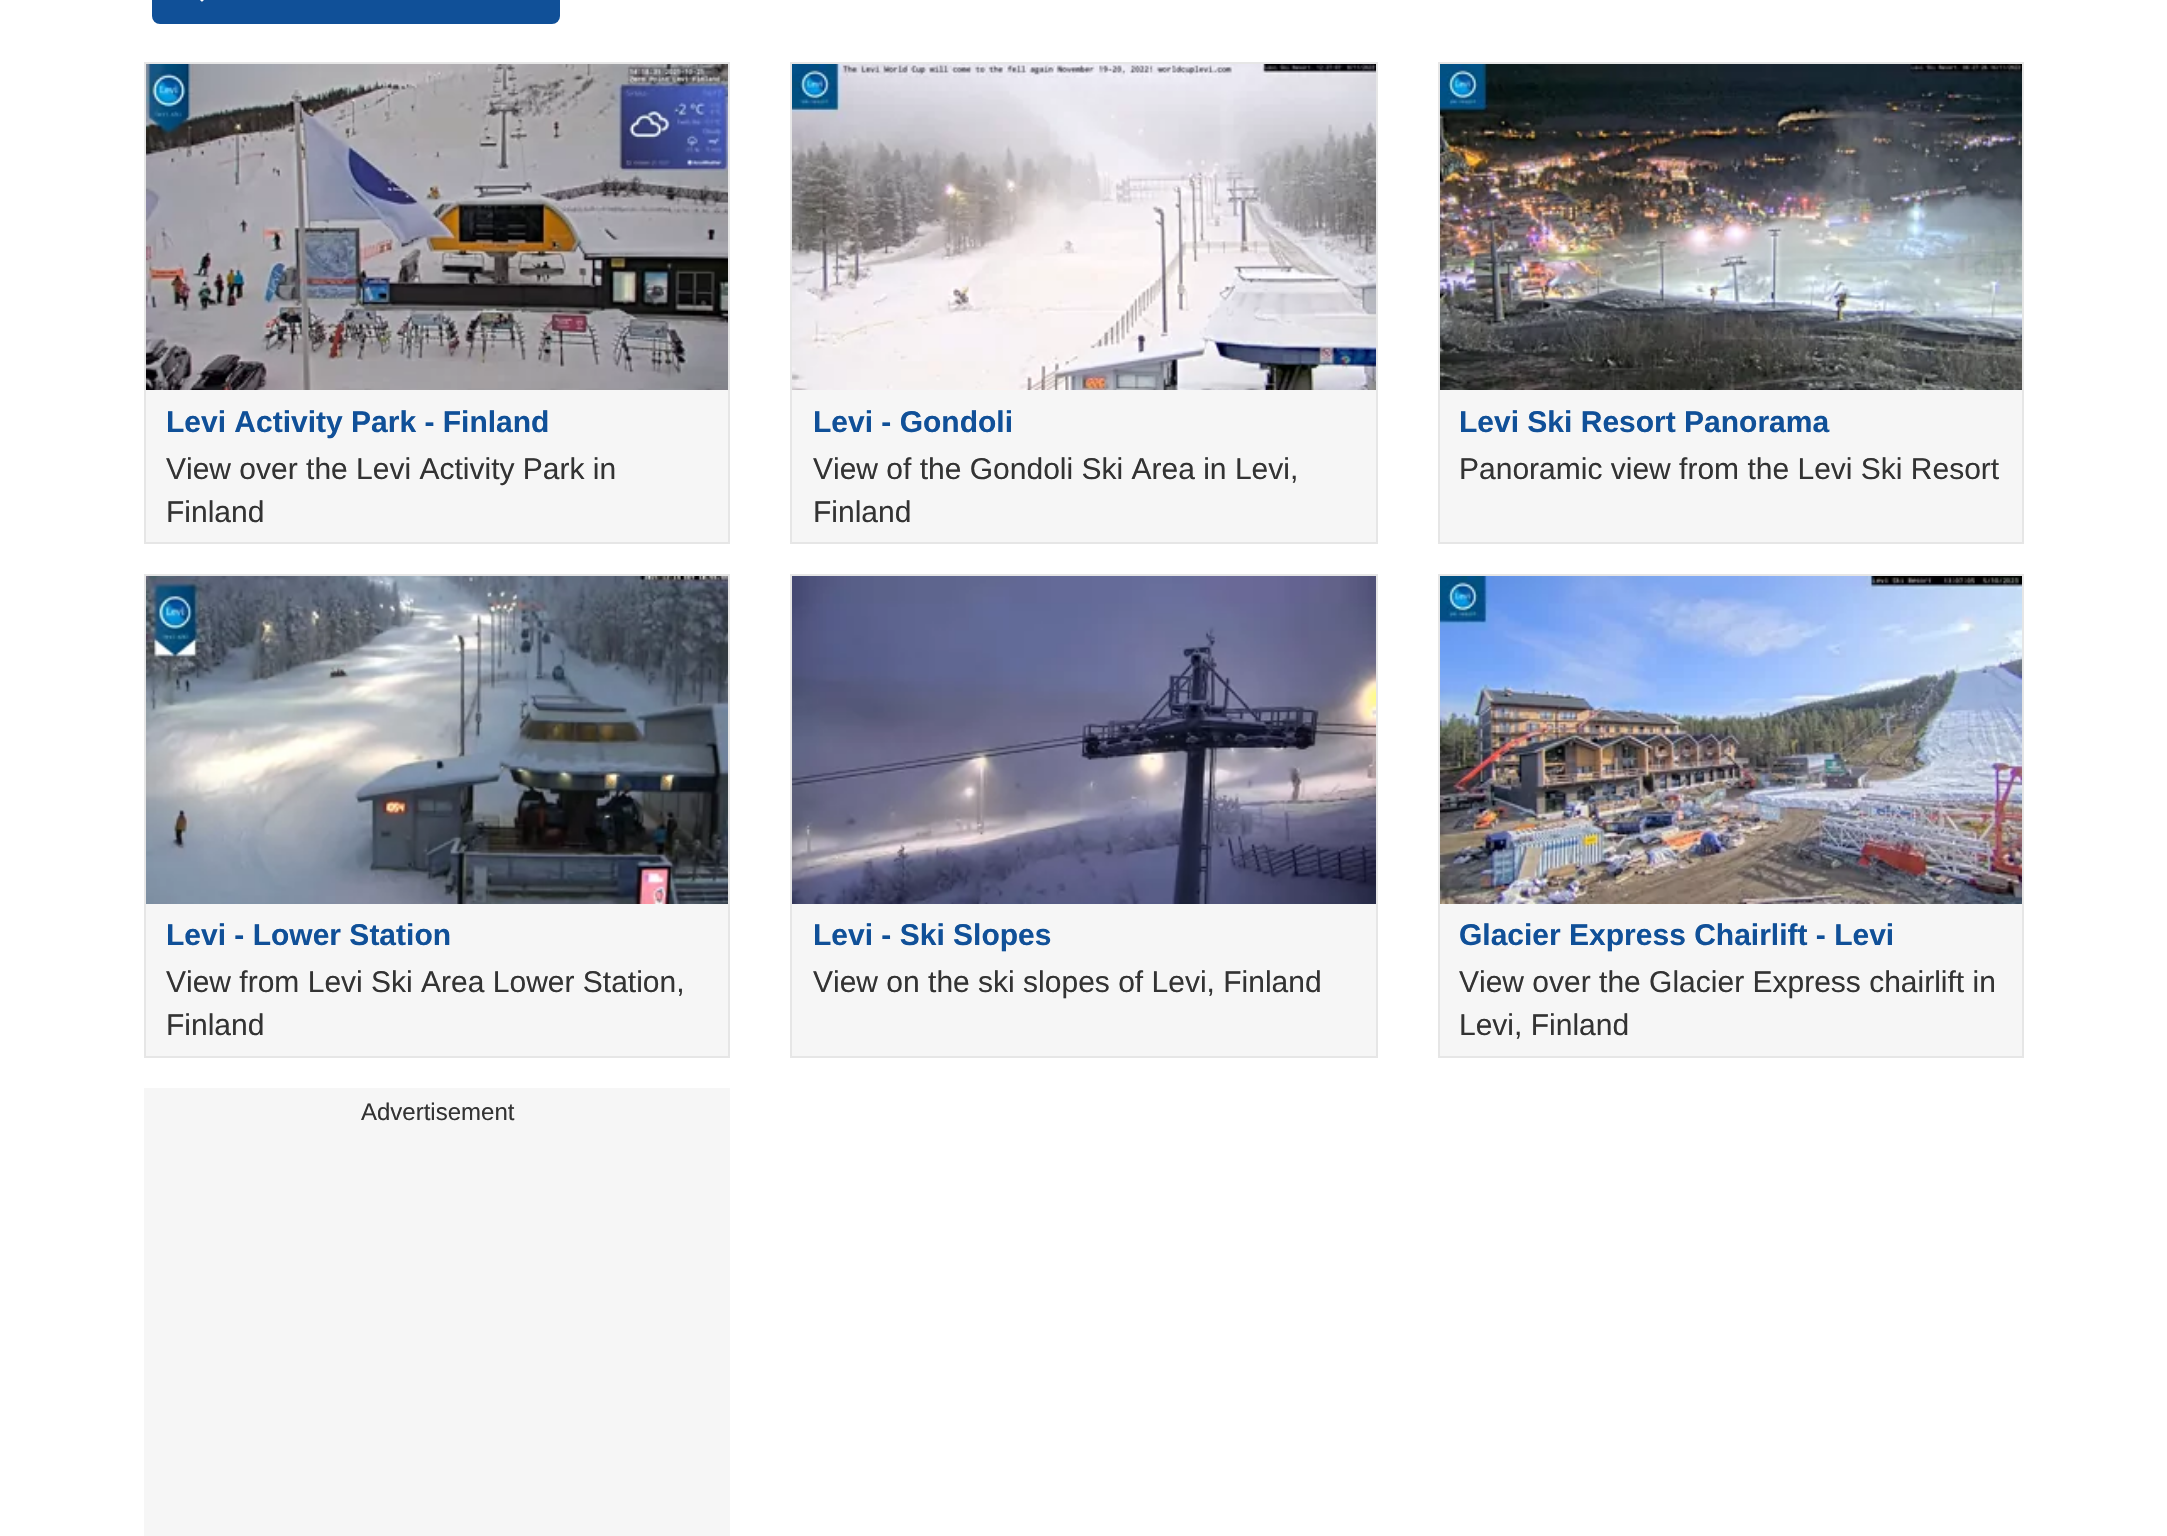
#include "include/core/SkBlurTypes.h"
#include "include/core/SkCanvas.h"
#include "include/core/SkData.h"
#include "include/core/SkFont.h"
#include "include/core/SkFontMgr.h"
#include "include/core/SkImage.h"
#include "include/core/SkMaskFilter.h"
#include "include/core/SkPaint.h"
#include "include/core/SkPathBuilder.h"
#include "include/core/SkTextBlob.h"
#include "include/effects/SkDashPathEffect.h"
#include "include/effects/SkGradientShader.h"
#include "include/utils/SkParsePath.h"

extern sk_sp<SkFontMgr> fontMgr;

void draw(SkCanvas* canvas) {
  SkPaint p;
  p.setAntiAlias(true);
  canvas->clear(SK_ColorWHITE);
  p.setColor(SkColorSetRGB(16, 80, 152));
  canvas->drawRoundRect(SkRect::MakeLTRB(152, -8, 560, 24), 8, 8, p);
  canvas->drawImageRect(SkImages::DeferredFromEncodedData(SkData::MakeFromFileName("images/1.png")), SkRect::MakeLTRB(200, 0, 204, 2), SkSamplingOptions());
  p.setColor(SkColorSetRGB(246, 246, 246));
  canvas->drawRect(SkRect::MakeLTRB(146, 390, 728, 542), p);
  p.setStyle(SkPaint::kStroke_Style);
  p.setStrokeWidth(2);
  p.setColor(SkColorSetRGB(230, 230, 230));
  canvas->drawRect(SkRect::MakeLTRB(145, 63, 729, 543), p);
  canvas->drawImageRect(SkImages::DeferredFromEncodedData(SkData::MakeFromFileName("images/2.png")), SkRect::MakeLTRB(146, 64, 728, 390), SkSamplingOptions());
  p.setStyle(SkPaint::kFill_Style);
  p.setColor(SkColorSetRGB(246, 246, 246));
  canvas->drawRect(SkRect::MakeLTRB(792, 390, 1376, 542), p);
  p.setStyle(SkPaint::kStroke_Style);
  p.setColor(SkColorSetRGB(230, 230, 230));
  canvas->drawRect(SkRect::MakeLTRB(791, 63, 1377, 543), p);
  canvas->drawImageRect(SkImages::DeferredFromEncodedData(SkData::MakeFromFileName("images/3.png")), SkRect::MakeLTRB(792, 64, 1376, 390), SkSamplingOptions());
  p.setStyle(SkPaint::kFill_Style);
  p.setColor(SkColorSetRGB(246, 246, 246));
  canvas->drawRect(SkRect::MakeLTRB(1440, 390, 2022, 542), p);
  p.setStyle(SkPaint::kStroke_Style);
  p.setColor(SkColorSetRGB(230, 230, 230));
  canvas->drawRect(SkRect::MakeLTRB(1439, 63, 2023, 543), p);
  canvas->drawImageRect(SkImages::DeferredFromEncodedData(SkData::MakeFromFileName("images/4.png")), SkRect::MakeLTRB(1440, 64, 2022, 390), SkSamplingOptions());
  p.setStyle(SkPaint::kFill_Style);
  p.setColor(SkColorSetRGB(246, 246, 246));
  canvas->drawRect(SkRect::MakeLTRB(146, 904, 728, 1056), p);
  p.setStyle(SkPaint::kStroke_Style);
  p.setColor(SkColorSetRGB(230, 230, 230));
  canvas->drawRect(SkRect::MakeLTRB(145, 575, 729, 1057), p);
  canvas->drawImageRect(SkImages::DeferredFromEncodedData(SkData::MakeFromFileName("images/5.png")), SkRect::MakeLTRB(146, 576, 728, 904), SkSamplingOptions());
  p.setStyle(SkPaint::kFill_Style);
  p.setColor(SkColorSetRGB(246, 246, 246));
  canvas->drawRect(SkRect::MakeLTRB(792, 904, 1376, 1056), p);
  p.setStyle(SkPaint::kStroke_Style);
  p.setColor(SkColorSetRGB(230, 230, 230));
  canvas->drawRect(SkRect::MakeLTRB(791, 575, 1377, 1057), p);
  canvas->drawImageRect(SkImages::DeferredFromEncodedData(SkData::MakeFromFileName("images/6.png")), SkRect::MakeLTRB(792, 576, 1376, 904), SkSamplingOptions());
  p.setStyle(SkPaint::kFill_Style);
  p.setColor(SkColorSetRGB(246, 246, 246));
  canvas->drawRect(SkRect::MakeLTRB(1440, 904, 2022, 1056), p);
  p.setStyle(SkPaint::kStroke_Style);
  p.setColor(SkColorSetRGB(230, 230, 230));
  canvas->drawRect(SkRect::MakeLTRB(1439, 575, 2023, 1057), p);
  canvas->drawImageRect(SkImages::DeferredFromEncodedData(SkData::MakeFromFileName("images/7.png")), SkRect::MakeLTRB(1440, 576, 2022, 904), SkSamplingOptions());
  p.setStyle(SkPaint::kFill_Style);
  p.setColor(SkColorSetRGB(246, 246, 246));
  canvas->drawRect(SkRect::MakeLTRB(144, 1088, 730, 1536), p);
  SkFont font1(fontMgr->matchFamilyStyle("Liberation Sans", SkFontStyle::Bold()), 30);
  font1.setSubpixel(true);
  p.setColor(SkColorSetRGB(16, 80, 152));
  canvas->drawString("Levi Activity Park - Finland", 166, 432, font1, p);
  SkFont font2(fontMgr->matchFamilyStyle("Liberation Sans", SkFontStyle::Normal()), 30);
  font2.setSubpixel(true);
  p.setColor(SkColorSetRGB(51, 51, 51));
  canvas->drawString("View over the Levi Activity Park in", 166, 479, font2, p);
  canvas->drawString("Finland", 166, 522, font2, p);
  p.setColor(SkColorSetRGB(16, 80, 152));
  canvas->drawString("Levi - Gondoli", 813, 432, font1, p);
  p.setColor(SkColorSetRGB(51, 51, 51));
  canvas->drawString("View of the Gondoli Ski Area in Levi,", 813, 479, font2, p);
  canvas->drawString("Finland", 813, 522, font2, p);
  p.setColor(SkColorSetRGB(16, 80, 152));
  canvas->drawString("Levi Ski Resort Panorama", 1459, 432, font1, p);
  p.setColor(SkColorSetRGB(51, 51, 51));
  canvas->drawString("Panoramic view from the Levi Ski Resort", 1459, 479, font2, p);
  p.setColor(SkColorSetRGB(16, 80, 152));
  canvas->drawString("Levi - Lower Station", 166, 945, font1, p);
  p.setColor(SkColorSetRGB(51, 51, 51));
  canvas->drawString("View from Levi Ski Area Lower Station,", 166, 992, font2, p);
  canvas->drawString("Finland", 166, 1035, font2, p);
  p.setColor(SkColorSetRGB(16, 80, 152));
  canvas->drawString("Levi - Ski Slopes", 813, 945, font1, p);
  p.setColor(SkColorSetRGB(51, 51, 51));
  canvas->drawString("View on the ski slopes of Levi, Finland", 813, 992, font2, p);
  p.setColor(SkColorSetRGB(16, 80, 152));
  canvas->drawString("Glacier Express Chairlift - Levi", 1459, 945, font1, p);
  p.setColor(SkColorSetRGB(51, 51, 51));
  canvas->drawString("View over the Glacier Express chairlift in", 1459, 992, font2, p);
  canvas->drawString("Levi, Finland", 1459, 1035, font2, p);
  SkFont font3(fontMgr->matchFamilyStyle("Liberation Sans", SkFontStyle::Normal()), 24);
  font3.setSubpixel(true);
  canvas->drawString("Advertisement", 361, 1120, font3, p);
}
